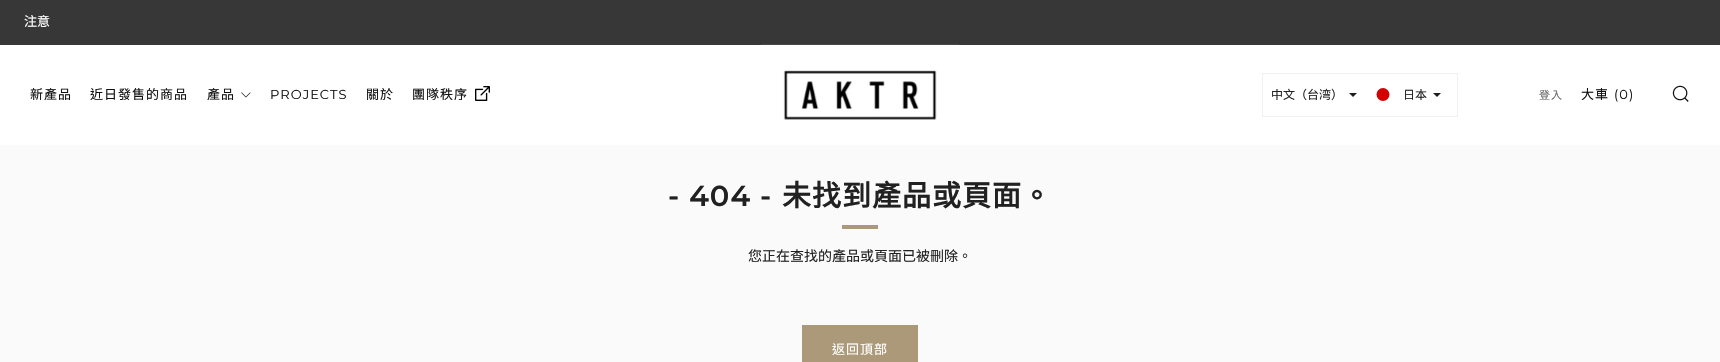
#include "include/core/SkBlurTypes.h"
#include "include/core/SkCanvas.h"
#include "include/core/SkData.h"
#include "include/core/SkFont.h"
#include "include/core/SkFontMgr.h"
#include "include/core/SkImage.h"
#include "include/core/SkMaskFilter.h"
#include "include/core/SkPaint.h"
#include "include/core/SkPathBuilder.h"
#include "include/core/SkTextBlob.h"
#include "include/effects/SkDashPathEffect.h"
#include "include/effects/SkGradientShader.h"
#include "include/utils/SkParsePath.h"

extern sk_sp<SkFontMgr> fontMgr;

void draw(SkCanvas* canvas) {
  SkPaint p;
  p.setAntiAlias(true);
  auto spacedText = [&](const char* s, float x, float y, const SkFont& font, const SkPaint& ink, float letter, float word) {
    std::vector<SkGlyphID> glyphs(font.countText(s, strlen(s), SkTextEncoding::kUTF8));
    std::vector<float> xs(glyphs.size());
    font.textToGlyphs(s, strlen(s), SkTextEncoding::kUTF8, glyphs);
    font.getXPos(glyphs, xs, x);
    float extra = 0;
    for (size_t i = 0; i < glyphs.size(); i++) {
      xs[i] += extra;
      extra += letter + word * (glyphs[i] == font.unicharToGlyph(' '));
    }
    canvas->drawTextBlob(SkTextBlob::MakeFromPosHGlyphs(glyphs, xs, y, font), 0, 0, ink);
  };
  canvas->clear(SkColorSetRGB(250, 250, 250));
  p.setColor(SkColorSetRGB(55, 55, 55));
  canvas->drawRect(SkRect::MakeLTRB(0, 0, 1720, 45), p);
  p.setColor(SK_ColorWHITE);
  canvas->drawRect(SkRect::MakeLTRB(0, 45, 1720, 145), p);
  canvas->drawImageRect(SkImages::DeferredFromEncodedData(SkData::MakeFromFileName("images/1.png")), SkRect::MakeLTRB(761, 44, 959, 120), SkSamplingOptions());
  canvas->drawImageRect(SkImages::DeferredFromEncodedData(SkData::MakeFromFileName("images/2.png")), SkRect::MakeLTRB(241, 92, 251, 98), SkSamplingOptions());
  canvas->drawImageRect(SkImages::DeferredFromEncodedData(SkData::MakeFromFileName("images/3.png")), SkRect::MakeLTRB(475, 86, 490, 101), SkSamplingOptions());
  canvas->drawImageRect(SkImages::DeferredFromEncodedData(SkData::MakeFromFileName("images/4.png")), SkRect::MakeLTRB(1672, 85, 1689, 102), SkSamplingOptions());
  p.setStyle(SkPaint::kStroke_Style);
  p.setStrokeWidth(1);
  p.setColor(SkColorSetRGB(240, 240, 240));
  canvas->drawRect(SkRect::MakeLTRB(1262.5f, 73.5f, 1457.5f, 116.5f), p);
  p.setStyle(SkPaint::kFill_Style);
  p.setColor(SkColorSetRGB(29, 29, 29));
  canvas->drawPath(SkPathBuilder().moveTo(1349, 93).lineTo(1357, 93).lineTo(1353, 97).close().detach(), p);
  p.setColor(SkColorSetRGB(211, 0, 0));
  canvas->drawCircle(1383, 94.5f, 6.5f, p);
  p.setColor(SkColorSetRGB(29, 29, 29));
  canvas->drawPath(SkPathBuilder().moveTo(1433, 93).lineTo(1441, 93).lineTo(1437, 97).close().detach(), p);
  p.setColor(SkColorSetRGB(172, 153, 121));
  canvas->drawRect(SkRect::MakeLTRB(842, 225, 878, 229), p);
  canvas->drawRect(SkRect::MakeLTRB(802, 325, 918, 362), p);
  SkFont font1(fontMgr->matchFamilyStyle("Noto Sans CJK TC", SkFontStyle::Normal()), 13);
  font1.setSubpixel(true);
  p.setColor(SK_ColorWHITE);
  canvas->drawString("注意", 24, 26, font1, p);
  p.setColor(SkColorSetRGB(17, 17, 17));
  spacedText("新產品", 30, 99, font1, p, 1, 0);
  spacedText("近日發售的商品", 90, 99, font1, p, 1, 0);
  spacedText("產品", 207, 99, font1, p, 1, 0);
  SkFont font2(fontMgr->matchFamilyStyle("Montserrat", SkFontStyle::Normal()), 13);
  font2.setSubpixel(true);
  spacedText("PROJECTS", 270, 99, font2, p, 1, 0);
  spacedText("關於", 366, 99, font1, p, 1, 0);
  spacedText("團隊秩序", 412, 99, font1, p, 1, 0);
  SkFont font3(fontMgr->matchFamilyStyle("Noto Sans CJK TC", SkFontStyle::Normal()), 11);
  font3.setSubpixel(true);
  p.setColor(SkColorSetRGB(102, 102, 102));
  spacedText("登入", 1539, 99, font3, p, 1, 0);
  p.setColor(SkColorSetRGB(17, 17, 17));
  spacedText("大車", 1581, 99, font1, p, 1, 0);
  spacedText("(0)", 1614, 99, font2, p, 1, 0);
  SkFont font4(fontMgr->matchFamilyStyle("Noto Sans CJK TC", SkFontStyle::Normal()), 12);
  font4.setSubpixel(true);
  p.setColor(SkColorSetRGB(33, 33, 33));
  canvas->drawString("中文（台湾）", 1271, 99, font4, p);
  canvas->drawString("日本", 1403, 99, font4, p);
  SkFont font5(fontMgr->matchFamilyStyle("Montserrat", SkFontStyle(600, SkFontStyle::kNormal_Width, SkFontStyle::kUpright_Slant)), 29);
  font5.setSubpixel(true);
  spacedText("- 404 -", 668, 206, font5, p, 1, 0);
  SkFont font6(fontMgr->matchFamilyStyle("Noto Sans CJK TC", SkFontStyle::Bold()), 29);
  font6.setSubpixel(true);
  spacedText("未找到產品或頁面。", 782, 206, font6, p, 1, 0);
  SkFont font7(fontMgr->matchFamilyStyle("Noto Sans CJK TC", SkFontStyle::Normal()), 14);
  font7.setSubpixel(true);
  canvas->drawString("您正在查找的產品或頁面已被刪除。", 748, 261, font7, p);
  p.setColor(SK_ColorWHITE);
  spacedText("返回頂部", 832, 354, font1, p, 1, 0);
}
